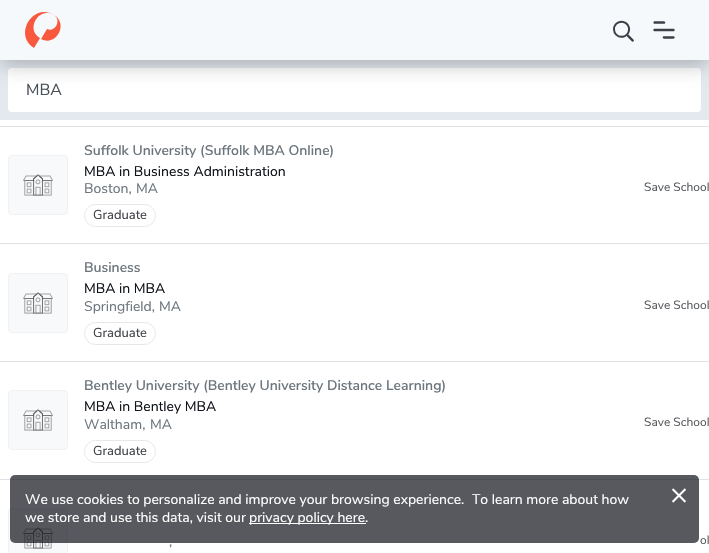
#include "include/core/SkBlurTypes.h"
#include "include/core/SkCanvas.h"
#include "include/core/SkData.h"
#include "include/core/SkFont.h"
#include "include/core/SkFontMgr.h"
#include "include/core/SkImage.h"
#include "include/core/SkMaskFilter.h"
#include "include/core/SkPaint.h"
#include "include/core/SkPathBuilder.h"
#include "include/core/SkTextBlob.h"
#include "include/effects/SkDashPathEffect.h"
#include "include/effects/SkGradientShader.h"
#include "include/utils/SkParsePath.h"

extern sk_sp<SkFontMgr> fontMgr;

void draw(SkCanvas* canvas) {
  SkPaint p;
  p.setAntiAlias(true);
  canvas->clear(SK_ColorWHITE);
  p.setColor(SkColorSetRGB(228, 233, 240));
  canvas->drawRect(SkRect::MakeLTRB(0, 60, 709, 120), p);
  p.setColor(SK_ColorWHITE);
  canvas->drawRoundRect(SkRect::MakeLTRB(9, 69, 700, 111), 3, 3, p);
  p.setStyle(SkPaint::kStroke_Style);
  p.setStrokeWidth(2);
  canvas->drawRoundRect(SkRect::MakeLTRB(9, 69, 700, 111), 3, 3, p);
  p.setStyle(SkPaint::kFill_Style);
  p.setColor(SkColorSetARGB(64, 0, 0, 0));
  p.setMaskFilter(SkMaskFilter::MakeBlur(kNormal_SkBlurStyle, 10));
  canvas->drawRect(SkRect::MakeLTRB(0, 5, 709, 65), p);
  p.setMaskFilter(nullptr);
  p.setColor(SkColorSetRGB(246, 249, 252));
  canvas->drawRect(SkRect::MakeLTRB(0, 0, 709, 60), p);
  p.setColor(SkColorSetRGB(248, 89, 62));
  canvas->drawPath(SkPathBuilder().moveTo(54, 15).cubicTo(33, 2, 13, 35, 34, 48).lineTo(40, 38).cubicTo(25, 29, 39, 6, 54, 15).cubicTo(62, 20, 55, 33, 47, 29).lineTo(41, 39).cubicTo(56, 47, 69, 24, 54, 15).close().detach(), p);
  canvas->drawImageRect(SkImages::DeferredFromEncodedData(SkData::MakeFromFileName("images/1.png")), SkRect::MakeLTRB(613, 20, 634, 42), SkSamplingOptions());
  canvas->drawImageRect(SkImages::DeferredFromEncodedData(SkData::MakeFromFileName("images/2.png")), SkRect::MakeLTRB(653, 21, 675, 39), SkSamplingOptions());
  p.setColor(SkColorSetRGB(222, 226, 230));
  canvas->drawRect(SkRect::MakeLTRB(0, 126, 709, 127), p);
  canvas->drawRect(SkRect::MakeLTRB(0, 243, 709, 244), p);
  p.setColor(SkColorSetRGB(248, 249, 251));
  canvas->drawRoundRect(SkRect::MakeLTRB(8.5f, 155.5f, 67.5f, 214.5f), 3.5f, 3.5f, p);
  p.setStyle(SkPaint::kStroke_Style);
  p.setStrokeWidth(1);
  p.setColor(SkColorSetRGB(239, 241, 243));
  canvas->drawRoundRect(SkRect::MakeLTRB(8.5f, 155.5f, 67.5f, 214.5f), 3.5f, 3.5f, p);
  canvas->drawImageRect(SkImages::DeferredFromEncodedData(SkData::MakeFromFileName("images/3.png")), SkRect::MakeLTRB(23, 174, 53, 196), SkSamplingOptions());
  p.setColor(SkColorSetRGB(229, 232, 235));
  canvas->drawRoundRect(SkRect::MakeLTRB(84.5f, 204.5f, 155.5f, 226.5f), 11, 11, p);
  p.setStyle(SkPaint::kFill_Style);
  p.setColor(SkColorSetRGB(222, 226, 230));
  canvas->drawRect(SkRect::MakeLTRB(0, 361, 709, 362), p);
  p.setColor(SkColorSetRGB(248, 249, 251));
  canvas->drawRoundRect(SkRect::MakeLTRB(8.5f, 273.5f, 67.5f, 332.5f), 3.5f, 3.5f, p);
  p.setStyle(SkPaint::kStroke_Style);
  p.setColor(SkColorSetRGB(239, 241, 243));
  canvas->drawRoundRect(SkRect::MakeLTRB(8.5f, 273.5f, 67.5f, 332.5f), 3.5f, 3.5f, p);
  canvas->drawImageRect(SkImages::DeferredFromEncodedData(SkData::MakeFromFileName("images/3.png")), SkRect::MakeLTRB(23, 292, 53, 314), SkSamplingOptions());
  p.setColor(SkColorSetRGB(229, 232, 235));
  canvas->drawRoundRect(SkRect::MakeLTRB(84.5f, 322.5f, 155.5f, 344.5f), 11, 11, p);
  p.setStyle(SkPaint::kFill_Style);
  p.setColor(SkColorSetRGB(222, 226, 230));
  canvas->drawRect(SkRect::MakeLTRB(0, 479, 709, 480), p);
  p.setColor(SkColorSetRGB(248, 249, 251));
  canvas->drawRoundRect(SkRect::MakeLTRB(8.5f, 390.5f, 67.5f, 449.5f), 3.5f, 3.5f, p);
  p.setStyle(SkPaint::kStroke_Style);
  p.setColor(SkColorSetRGB(239, 241, 243));
  canvas->drawRoundRect(SkRect::MakeLTRB(8.5f, 390.5f, 67.5f, 449.5f), 3.5f, 3.5f, p);
  canvas->drawImageRect(SkImages::DeferredFromEncodedData(SkData::MakeFromFileName("images/3.png")), SkRect::MakeLTRB(23, 409, 53, 431), SkSamplingOptions());
  p.setColor(SkColorSetRGB(229, 232, 235));
  canvas->drawRoundRect(SkRect::MakeLTRB(84.5f, 440.5f, 155.5f, 462.5f), 11, 11, p);
  p.setStyle(SkPaint::kFill_Style);
  p.setColor(SkColorSetRGB(248, 249, 251));
  canvas->drawRoundRect(SkRect::MakeLTRB(8.5f, 508.5f, 67.5f, 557.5f), 3.5f, 3.5f, p);
  p.setStyle(SkPaint::kStroke_Style);
  p.setColor(SkColorSetRGB(239, 241, 243));
  canvas->drawRoundRect(SkRect::MakeLTRB(8.5f, 508.5f, 67.5f, 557.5f), 3.5f, 3.5f, p);
  canvas->drawImageRect(SkImages::DeferredFromEncodedData(SkData::MakeFromFileName("images/3.png")), SkRect::MakeLTRB(23, 527, 53, 549), SkSamplingOptions());
  p.setStyle(SkPaint::kFill_Style);
  p.setColor(SkColorSetARGB(179, 15, 19, 25));
  canvas->drawRoundRect(SkRect::MakeLTRB(10, 475, 699, 543), 5, 5, p);
  p.setColor(SK_ColorWHITE);
  canvas->drawRect(SkRect::MakeLTRB(249, 523, 366, 524), p);
  SkFont font1(fontMgr->matchFamilyStyle("Nunito Sans", SkFontStyle::Normal()), 16);
  font1.setSubpixel(true);
  p.setColor(SkColorSetRGB(73, 80, 87));
  canvas->drawString("MBA", 26, 95, font1, p);
  SkFont font2(fontMgr->matchFamilyStyle("Nunito Sans", SkFontStyle(600, SkFontStyle::kNormal_Width, SkFontStyle::kUpright_Slant)), 14);
  font2.setSubpixel(true);
  p.setColor(SkColorSetRGB(108, 117, 125));
  canvas->drawString("Suffolk University (Suffolk MBA Online)", 84, 155, font2, p);
  SkFont font3(fontMgr->matchFamilyStyle("Nunito Sans", SkFontStyle::Normal()), 14);
  font3.setSubpixel(true);
  p.setColor(SkColorSetRGB(15, 19, 25));
  canvas->drawString("MBA in Business Administration", 84, 176, font3, p);
  p.setColor(SkColorSetRGB(108, 117, 125));
  canvas->drawString("Boston,", 84, 193, font3, p);
  canvas->drawString("MA", 136, 193, font3, p);
  SkFont font4(fontMgr->matchFamilyStyle("Nunito Sans", SkFontStyle::Normal()), 13);
  font4.setSubpixel(true);
  p.setColor(SkColorSetRGB(63, 66, 71));
  canvas->drawString("Graduate", 93, 219, font4, p);
  SkFont font5(fontMgr->matchFamilyStyle("Nunito Sans", SkFontStyle::Normal()), 12);
  font5.setSubpixel(true);
  p.setColor(SkColorSetRGB(87, 90, 94));
  canvas->drawString("Save School", 644, 191, font5, p);
  p.setColor(SkColorSetRGB(108, 117, 125));
  canvas->drawString("Business", 84, 272, font2, p);
  p.setColor(SkColorSetRGB(15, 19, 25));
  canvas->drawString("MBA in MBA", 84, 293, font3, p);
  p.setColor(SkColorSetRGB(108, 117, 125));
  canvas->drawString("Springfield,", 84, 311, font3, p);
  canvas->drawString("MA", 159, 311, font3, p);
  p.setColor(SkColorSetRGB(63, 66, 71));
  canvas->drawString("Graduate", 93, 337, font4, p);
  p.setColor(SkColorSetRGB(87, 90, 94));
  canvas->drawString("Save School", 644, 309, font5, p);
  p.setColor(SkColorSetRGB(108, 117, 125));
  canvas->drawString("Bentley University (Bentley University Distance Learning)", 84, 390, font2, p);
  p.setColor(SkColorSetRGB(15, 19, 25));
  canvas->drawString("MBA in Bentley MBA", 84, 411, font3, p);
  p.setColor(SkColorSetRGB(108, 117, 125));
  canvas->drawString("Waltham,", 84, 429, font3, p);
  canvas->drawString("MA", 150, 429, font3, p);
  p.setColor(SkColorSetRGB(63, 66, 71));
  canvas->drawString("Graduate", 93, 455, font4, p);
  p.setColor(SkColorSetRGB(87, 90, 94));
  canvas->drawString("Save School", 644, 426, font5, p);
  canvas->drawString("ol", 700, 544, font5, p);
  p.setColor(SkColorSetRGB(108, 117, 125));
  canvas->drawString(",", 169, 546, font3, p);
  p.setColor(SK_ColorWHITE);
  canvas->drawString("We use cookies to personalize and improve your browsing experience.", 25, 504, font3, p);
  canvas->drawString("To learn more about how", 472, 504, font3, p);
  canvas->drawString("we store and use this data, visit our", 25, 522, font3, p);
  canvas->drawString("privacy policy here.", 249, 522, font3, p);
  SkFont font6(fontMgr->matchFamilyStyle("Nunito Sans", SkFontStyle::Normal()), 30);
  font6.setSubpixel(true);
  canvas->drawString("×", 670, 504, font6, p);
}
